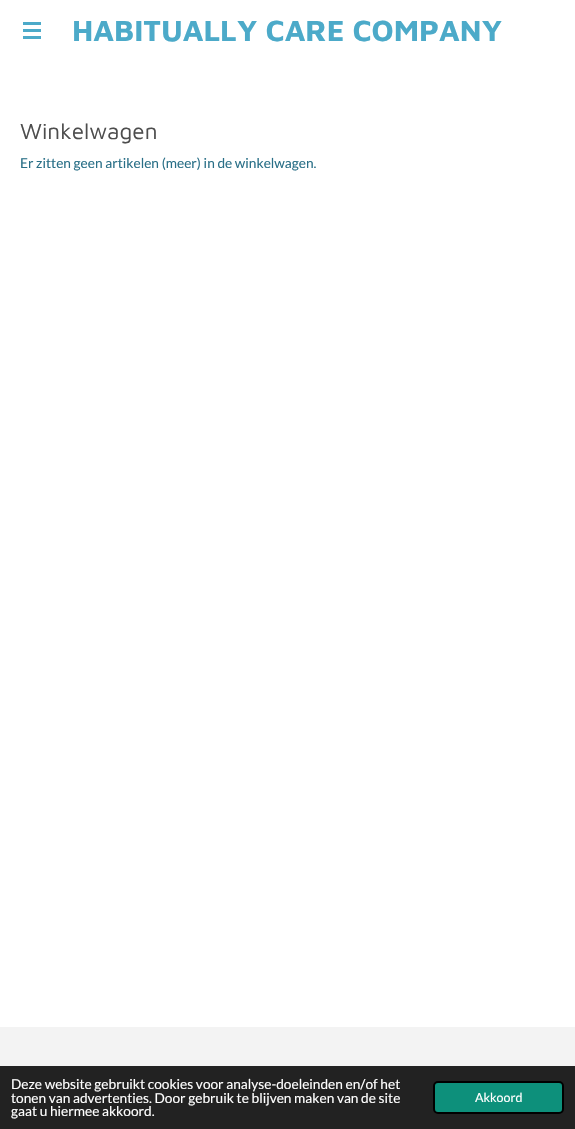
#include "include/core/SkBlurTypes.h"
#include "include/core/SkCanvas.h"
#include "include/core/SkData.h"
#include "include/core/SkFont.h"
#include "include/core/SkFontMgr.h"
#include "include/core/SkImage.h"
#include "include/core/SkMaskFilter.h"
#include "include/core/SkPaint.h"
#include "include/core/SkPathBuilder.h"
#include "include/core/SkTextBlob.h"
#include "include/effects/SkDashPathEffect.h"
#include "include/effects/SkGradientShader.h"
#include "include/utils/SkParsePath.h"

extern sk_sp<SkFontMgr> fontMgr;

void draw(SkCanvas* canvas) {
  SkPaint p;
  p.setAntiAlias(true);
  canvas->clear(SK_ColorWHITE);
  p.setColor(SkColorSetRGB(76, 170, 201));
  canvas->drawRect(SkRect::MakeLTRB(23, 29, 41, 32), p);
  canvas->drawRect(SkRect::MakeLTRB(23, 22, 41, 25), p);
  canvas->drawRect(SkRect::MakeLTRB(23, 36, 41, 39), p);
  p.setColor(SkColorSetRGB(243, 243, 243));
  canvas->drawRect(SkRect::MakeLTRB(0, 1027, 575, 1066), p);
  p.setColor(SkColorSetRGB(34, 34, 34));
  canvas->drawRect(SkRect::MakeLTRB(0, 1066, 575, 1129), p);
  p.setColor(SkColorSetRGB(13, 144, 123));
  canvas->drawRoundRect(SkRect::MakeLTRB(434, 1082, 563, 1113), 4, 4, p);
  p.setStyle(SkPaint::kStroke_Style);
  p.setStrokeWidth(2);
  p.setColor(SK_ColorBLACK);
  canvas->drawRoundRect(SkRect::MakeLTRB(434, 1082, 563, 1113), 4, 4, p);
  SkFont font1(fontMgr->matchFamilyStyle("Maven Pro", SkFontStyle::Bold()), 30);
  font1.setSubpixel(true);
  p.setStyle(SkPaint::kFill_Style);
  p.setColor(SkColorSetRGB(76, 170, 201));
  canvas->drawString("HABITUALLY CARE COMPANY", 72, 41, font1, p);
  SkFont font2(fontMgr->matchFamilyStyle("Maven Pro", SkFontStyle::Normal()), 22.5f);
  font2.setSubpixel(true);
  p.setColor(SkColorSetRGB(77, 77, 77));
  canvas->drawString("Winkelwagen", 20, 139, font2, p);
  SkFont font3(fontMgr->matchFamilyStyle("Lato", SkFontStyle::Normal()), 13.7f);
  font3.setSubpixel(true);
  p.setColor(SkColorSetRGB(41, 111, 135));
  canvas->drawString("Er zitten geen artikelen (meer) in de winkelwagen.", 20, 168, font3, p);
  p.setColor(SK_ColorWHITE);
  canvas->drawString("Deze website gebruikt cookies voor analyse-doeleinden en/of het", 11, 1089, font3, p);
  canvas->drawString("tonen van advertenties. Door gebruik te blijven maken van de site", 11, 1103, font3, p);
  canvas->drawString("gaat u hiermee akkoord.", 11, 1116, font3, p);
  SkFont font4(fontMgr->matchFamilyStyle("Lato", SkFontStyle::Normal()), 12.5f);
  font4.setSubpixel(true);
  canvas->drawString("Akkoord", 475, 1102, font4, p);
}
